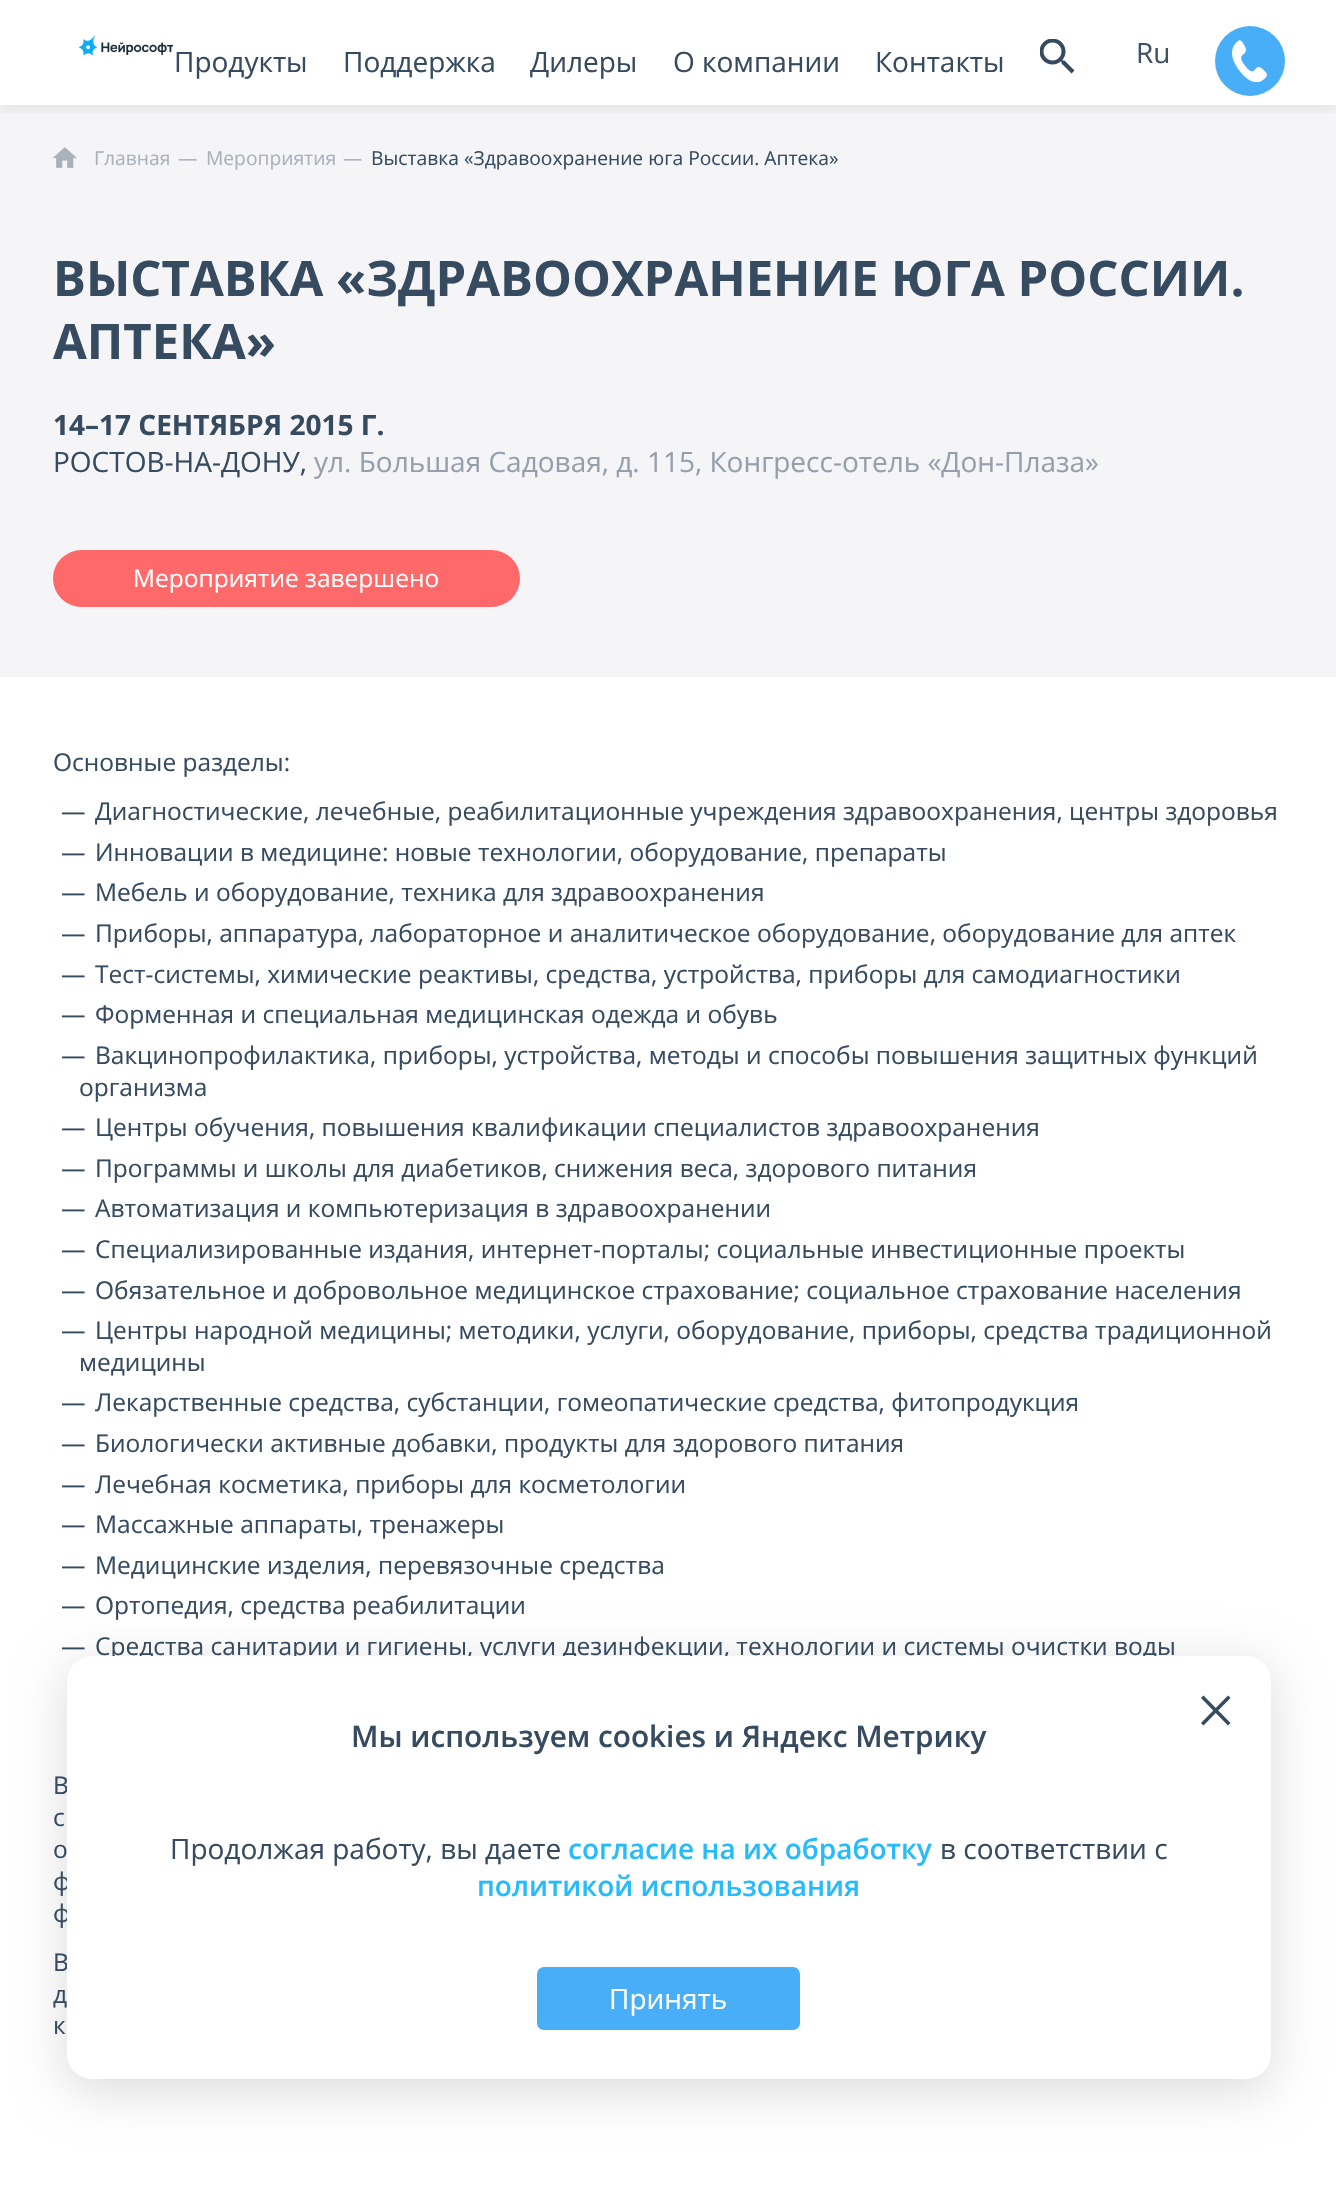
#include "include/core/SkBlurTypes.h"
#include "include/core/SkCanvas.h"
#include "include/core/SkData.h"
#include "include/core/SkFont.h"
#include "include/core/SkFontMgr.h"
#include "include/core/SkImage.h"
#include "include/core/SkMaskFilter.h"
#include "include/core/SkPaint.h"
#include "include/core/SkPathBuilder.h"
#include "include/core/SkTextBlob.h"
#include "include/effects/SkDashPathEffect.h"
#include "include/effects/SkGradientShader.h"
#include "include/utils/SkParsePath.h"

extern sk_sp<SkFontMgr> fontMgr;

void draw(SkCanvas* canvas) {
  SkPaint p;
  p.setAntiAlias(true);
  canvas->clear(SK_ColorWHITE);
  p.setColor(SkColorSetRGB(245, 245, 248));
  canvas->drawRect(SkRect::MakeLTRB(0, 105, 1336, 677), p);
  canvas->save();
  canvas->clipRect(SkRect::MakeLTRB(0, 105, 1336, 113));
  p.setColor(SkColorSetARGB(13, 0, 0, 0));
  p.setMaskFilter(SkMaskFilter::MakeBlur(kNormal_SkBlurStyle, 5));
  canvas->drawRect(SkRect::MakeLTRB(0, 7, 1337, 112), p);
  p.setMaskFilter(nullptr);
  canvas->restore();
  canvas->drawImageRect(SkImages::DeferredFromEncodedData(SkData::MakeFromFileName("images/1.png")), SkRect::MakeLTRB(79, 35, 173, 56), SkSamplingOptions());
  canvas->drawImageRect(SkImages::DeferredFromEncodedData(SkData::MakeFromFileName("images/2.png")), SkRect::MakeLTRB(1040, 39, 1075, 74), SkSamplingOptions());
  p.setColor(SkColorSetRGB(73, 174, 248));
  canvas->drawCircle(1250, 61, 35, p);
  canvas->drawImageRect(SkImages::DeferredFromEncodedData(SkData::MakeFromFileName("images/3.png")), SkRect::MakeLTRB(1232, 40, 1267, 82), SkSamplingOptions());
  canvas->drawImageRect(SkImages::DeferredFromEncodedData(SkData::MakeFromFileName("images/4.png")), SkRect::MakeLTRB(53, 147, 77, 168), SkSamplingOptions());
  p.setColor(SkColorSetRGB(255, 105, 105));
  canvas->drawRoundRect(SkRect::MakeLTRB(53, 550, 520, 607), 28.5f, 28.5f, p);
  p.setColor(SkColorSetARGB(36, 0, 0, 0));
  p.setMaskFilter(SkMaskFilter::MakeBlur(kNormal_SkBlurStyle, 24.5f));
  canvas->drawRoundRect(SkRect::MakeLTRB(67, 1666, 1271, 2090), 25, 25, p);
  p.setMaskFilter(nullptr);
  SkFont font1(fontMgr->matchFamilyStyle("Open Sans", SkFontStyle::Normal()), 28);
  font1.setSubpixel(true);
  p.setColor(SkColorSetRGB(54, 74, 96));
  canvas->drawString("Продукты", 174, 72, font1, p);
  canvas->drawString("Поддержка", 343, 72, font1, p);
  canvas->drawString("Дилеры", 530, 72, font1, p);
  canvas->drawString("О компании", 673, 72, font1, p);
  canvas->drawString("Контакты", 875, 72, font1, p);
  p.setColor(SkColorSetRGB(63, 82, 101));
  canvas->drawString("Ru", 1136, 63, font1, p);
  SkFont font2(fontMgr->matchFamilyStyle("Open Sans", SkFontStyle::Normal()), 19.25f);
  font2.setSubpixel(true);
  p.setColor(SkColorSetRGB(169, 177, 187));
  canvas->drawString("Главная", 94, 165, font2, p);
  canvas->drawString("—", 178, 165, font2, p);
  canvas->drawString("Мероприятия", 206, 165, font2, p);
  canvas->drawString("—", 343, 165, font2, p);
  p.setColor(SkColorSetRGB(54, 74, 96));
  canvas->drawString("Выставка «Здравоохранение юга России. Аптека»", 371, 165, font2, p);
  SkFont font3(fontMgr->matchFamilyStyle("Open Sans", SkFontStyle::Bold()), 49);
  font3.setSubpixel(true);
  canvas->drawString("ВЫСТАВКА «ЗДРАВООХРАНЕНИЕ ЮГА РОССИИ.", 53, 296, font3, p);
  canvas->drawString("АПТЕКА»", 53, 359, font3, p);
  SkFont font4(fontMgr->matchFamilyStyle("Open Sans", SkFontStyle::Bold()), 28);
  font4.setSubpixel(true);
  canvas->drawString("14–17 СЕНТЯБРЯ 2015 Г.", 53, 435, font4, p);
  canvas->drawString("РОСТОВ-НА-ДОНУ,", 53, 472, font1, p);
  p.setColor(SkColorSetRGB(150, 160, 172));
  canvas->drawString("ул. Большая Садовая, д. 115, Конгресс-отель «Дон-Плаза»", 314, 472, font1, p);
  SkFont font5(fontMgr->matchFamilyStyle("Open Sans", SkFontStyle::Normal()), 24.5f);
  font5.setSubpixel(true);
  p.setColor(SK_ColorWHITE);
  canvas->drawString("Мероприятие завершено", 133, 587, font5, p);
  p.setColor(SkColorSetRGB(54, 74, 96));
  canvas->drawString("Основные разделы:", 53, 771, font5, p);
  canvas->drawString("—", 61, 820, font5, p);
  canvas->drawString("Диагностические, лечебные, реабилитационные учреждения здравоохранения, центры здоровья", 95, 820, font5, p);
  canvas->drawString("—", 61, 861, font5, p);
  canvas->drawString("Инновации в медицине: новые технологии, оборудование, препараты", 95, 861, font5, p);
  canvas->drawString("—", 61, 901, font5, p);
  canvas->drawString("Мебель и оборудование, техника для здравоохранения", 95, 901, font5, p);
  canvas->drawString("—", 61, 942, font5, p);
  canvas->drawString("Приборы, аппаратура, лабораторное и аналитическое оборудование, оборудование для аптек", 95, 942, font5, p);
  canvas->drawString("—", 61, 983, font5, p);
  canvas->drawString("Тест-системы, химические реактивы, средства, устройства, приборы для самодиагностики", 95, 983, font5, p);
  canvas->drawString("—", 61, 1023, font5, p);
  canvas->drawString("Форменная и специальная медицинская одежда и обувь", 95, 1023, font5, p);
  canvas->drawString("—", 61, 1064, font5, p);
  canvas->drawString("Вакцинопрофилактика, приборы, устройства, методы и способы повышения защитных функций", 95, 1064, font5, p);
  canvas->drawString("организма", 79, 1096, font5, p);
  canvas->drawString("—", 61, 1136, font5, p);
  canvas->drawString("Центры обучения, повышения квалификации специалистов здравоохранения", 95, 1136, font5, p);
  canvas->drawString("—", 61, 1177, font5, p);
  canvas->drawString("Программы и школы для диабетиков, снижения веса, здорового питания", 95, 1177, font5, p);
  canvas->drawString("—", 61, 1217, font5, p);
  canvas->drawString("Автоматизация и компьютеризация в здравоохранении", 95, 1217, font5, p);
  canvas->drawString("—", 61, 1258, font5, p);
  canvas->drawString("Специализированные издания, интернет-порталы; социальные инвестиционные проекты", 95, 1258, font5, p);
  canvas->drawString("—", 61, 1299, font5, p);
  canvas->drawString("Обязательное и добровольное медицинское страхование; социальное страхование населения", 95, 1299, font5, p);
  canvas->drawString("—", 61, 1339, font5, p);
  canvas->drawString("Центры народной медицины; методики, услуги, оборудование, приборы, средства традиционной", 95, 1339, font5, p);
  canvas->drawString("медицины", 79, 1371, font5, p);
  canvas->drawString("—", 61, 1411, font5, p);
  canvas->drawString("Лекарственные средства, субстанции, гомеопатические средства, фитопродукция", 95, 1411, font5, p);
  canvas->drawString("—", 61, 1452, font5, p);
  canvas->drawString("Биологически активные добавки, продукты для здорового питания", 95, 1452, font5, p);
  canvas->drawString("—", 61, 1493, font5, p);
  canvas->drawString("Лечебная косметика, приборы для косметологии", 95, 1493, font5, p);
  canvas->drawString("—", 61, 1533, font5, p);
  canvas->drawString("Массажные аппараты, тренажеры", 95, 1533, font5, p);
  canvas->drawString("—", 61, 1574, font5, p);
  canvas->drawString("Медицинские изделия, перевязочные средства", 95, 1574, font5, p);
  canvas->drawString("—", 61, 1614, font5, p);
  canvas->drawString("Ортопедия, средства реабилитации", 95, 1614, font5, p);
  canvas->drawString("—", 61, 1655, font5, p);
  canvas->drawString("Средства санитарии и гигиены, услуги дезинфекции, технологии и системы очистки воды", 95, 1655, font5, p);
  canvas->drawString("В", 53, 1794, font5, p);
  canvas->drawString("с", 53, 1826, font5, p);
  canvas->drawString("о", 53, 1858, font5, p);
  canvas->drawString("ф", 53, 1890, font5, p);
  canvas->drawString("ф", 53, 1922, font5, p);
  canvas->drawString("В", 53, 1971, font5, p);
  canvas->drawString("д", 53, 2003, font5, p);
  canvas->drawString("к", 53, 2034, font5, p);
  p.setColor(SK_ColorWHITE);
  canvas->drawRoundRect(SkRect::MakeLTRB(67, 1656, 1271, 2079), 25, 25, p);
  p.setColor(SkColorSetRGB(54, 74, 96));
  canvas->drawPath(SkPathBuilder().moveTo(1228, 1695.5f).lineTo(1230.5f, 1698).lineTo(1203.5f, 1725.5f).lineTo(1201, 1723).close().detach(), p);
  canvas->drawPath(SkPathBuilder().moveTo(1201, 1698).lineTo(1203.5f, 1695.5f).lineTo(1230.5f, 1723).lineTo(1228, 1725.5f).close().detach(), p);
  SkFont font6(fontMgr->matchFamilyStyle("Open Sans", SkFontStyle(600, SkFontStyle::kNormal_Width, SkFontStyle::kUpright_Slant)), 29.75f);
  font6.setSubpixel(true);
  canvas->drawString("Мы используем cookies и Яндекс Метрику", 351, 1747, font6, p);
  canvas->drawString("Продолжая работу, вы даете", 170, 1859, font1, p);
  SkFont font7(fontMgr->matchFamilyStyle("Open Sans", SkFontStyle(600, SkFontStyle::kNormal_Width, SkFontStyle::kUpright_Slant)), 28);
  font7.setSubpixel(true);
  p.setColor(SkColorSetRGB(38, 187, 252));
  canvas->drawString("согласие на их обработку", 568, 1859, font7, p);
  p.setColor(SkColorSetRGB(54, 74, 96));
  canvas->drawString("в соответствии с", 940, 1859, font1, p);
  p.setColor(SkColorSetRGB(38, 187, 252));
  canvas->drawString("политикой использования", 477, 1896, font7, p);
  p.setColor(SkColorSetRGB(73, 174, 248));
  canvas->drawRoundRect(SkRect::MakeLTRB(537, 1967, 800, 2030), 7, 7, p);
  p.setColor(SK_ColorWHITE);
  canvas->drawString("Принять", 609, 2009, font1, p);
}
